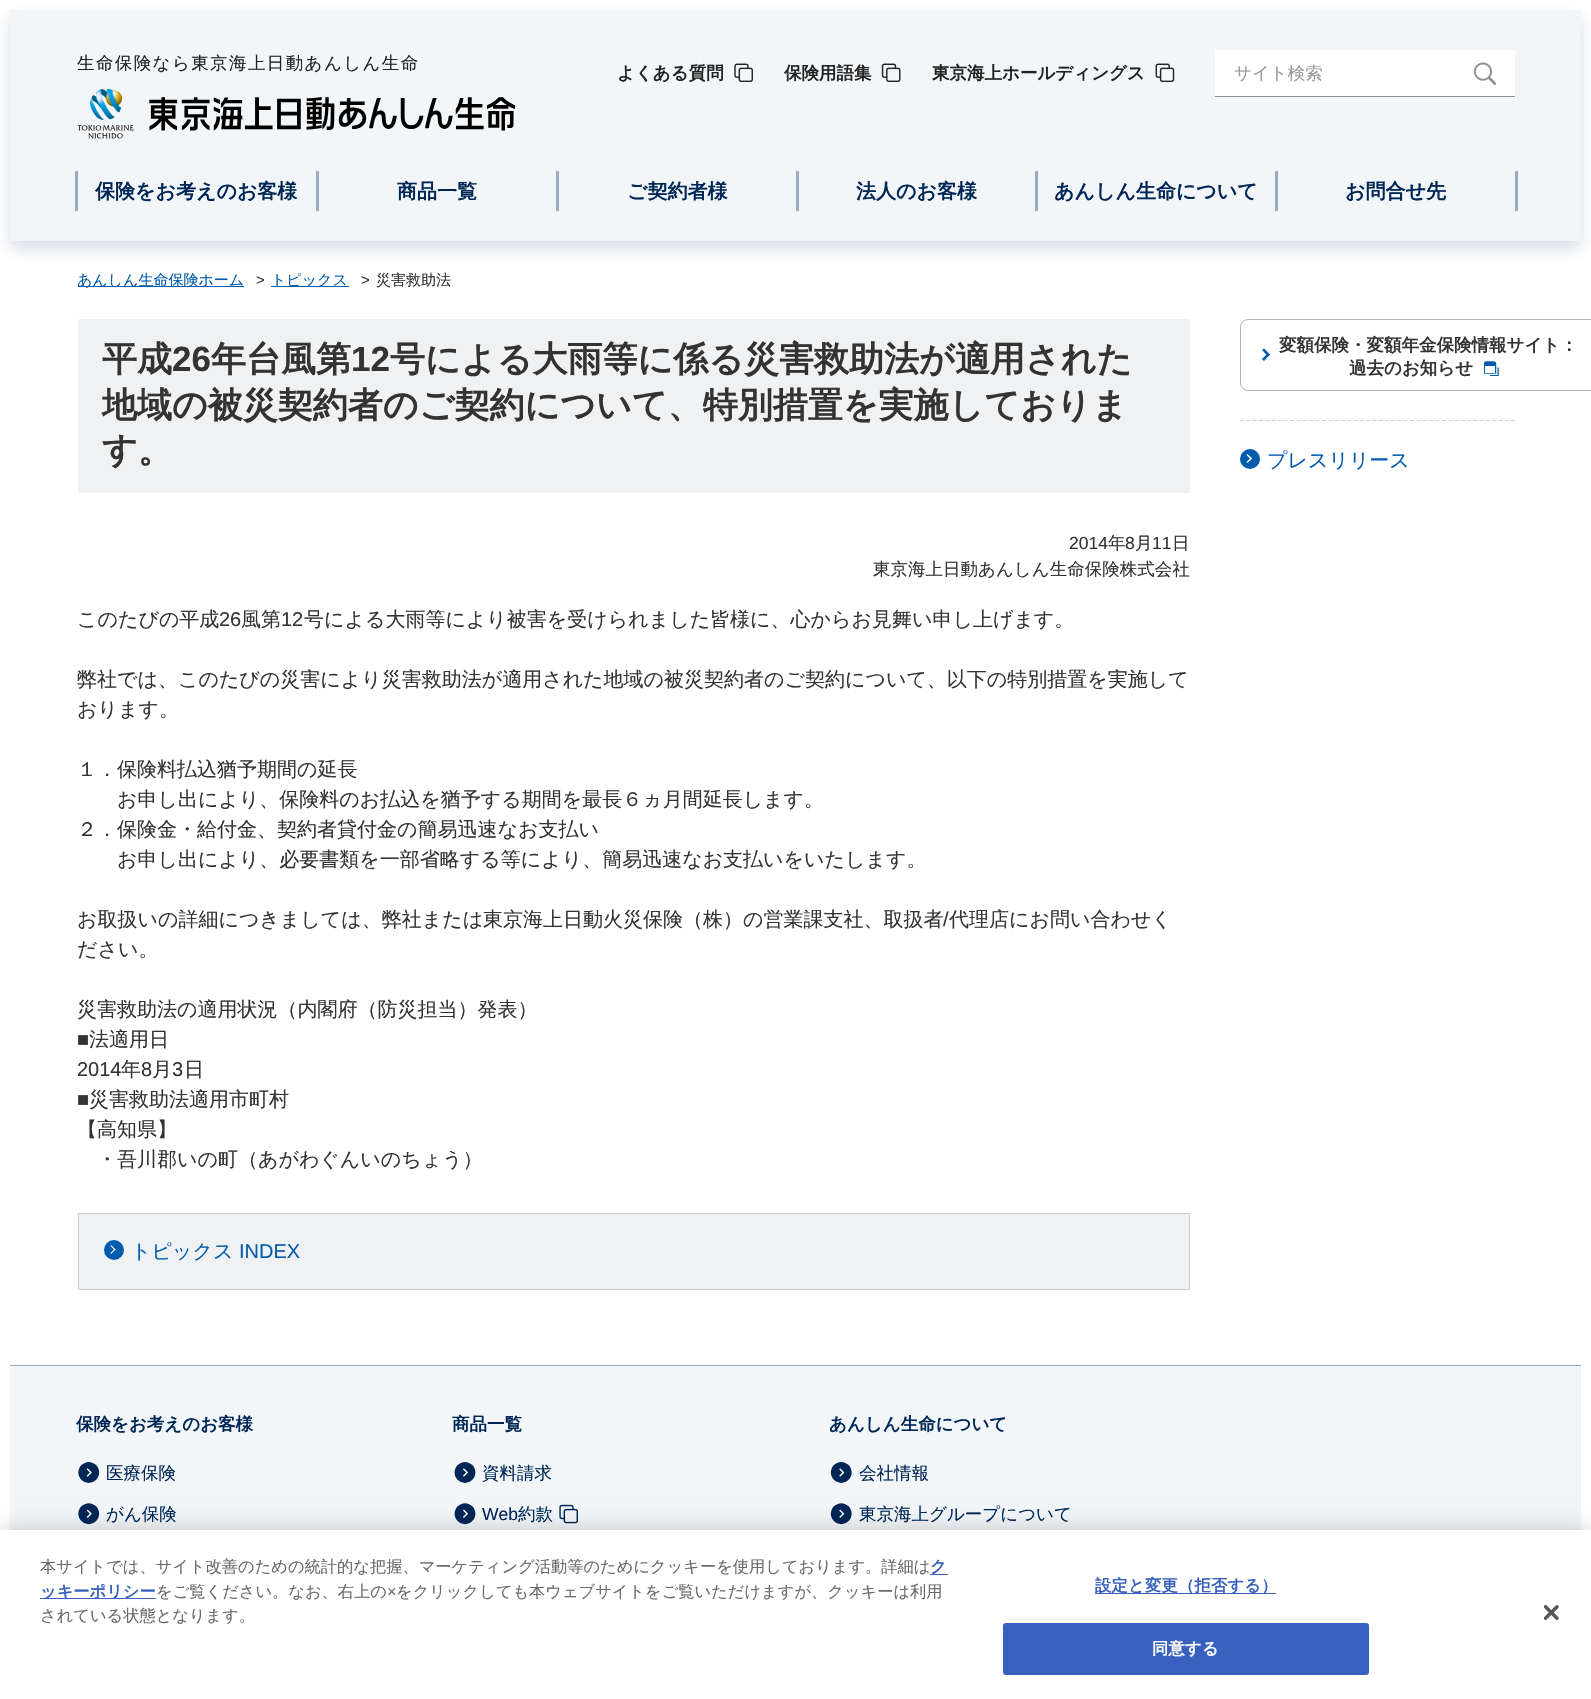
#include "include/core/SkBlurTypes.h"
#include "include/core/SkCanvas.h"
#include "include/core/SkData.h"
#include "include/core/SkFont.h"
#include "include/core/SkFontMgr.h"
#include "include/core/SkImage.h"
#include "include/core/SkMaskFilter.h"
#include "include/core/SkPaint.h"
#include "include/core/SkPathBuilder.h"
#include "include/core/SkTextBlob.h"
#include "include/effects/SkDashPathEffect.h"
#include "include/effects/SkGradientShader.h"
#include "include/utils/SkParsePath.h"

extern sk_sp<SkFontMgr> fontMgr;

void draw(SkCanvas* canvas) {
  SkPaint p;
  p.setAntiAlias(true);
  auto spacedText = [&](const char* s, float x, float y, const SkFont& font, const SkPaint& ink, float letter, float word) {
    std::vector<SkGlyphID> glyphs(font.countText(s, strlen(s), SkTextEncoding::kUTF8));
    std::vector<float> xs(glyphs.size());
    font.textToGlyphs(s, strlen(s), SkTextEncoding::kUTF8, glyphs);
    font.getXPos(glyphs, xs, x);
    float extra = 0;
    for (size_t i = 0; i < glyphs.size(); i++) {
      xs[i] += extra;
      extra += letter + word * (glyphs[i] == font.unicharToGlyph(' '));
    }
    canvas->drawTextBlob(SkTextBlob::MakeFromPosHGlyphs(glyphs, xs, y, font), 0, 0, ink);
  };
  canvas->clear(SK_ColorWHITE);
  p.setColor(SkColorSetARGB(102, 155, 171, 192));
  p.setMaskFilter(SkMaskFilter::MakeBlur(kNormal_SkBlurStyle, 7.5f));
  canvas->drawRect(SkRect::MakeLTRB(10, 18, 1581, 249), p);
  p.setMaskFilter(nullptr);
  p.setColor(SkColorSetRGB(242, 246, 249));
  canvas->drawRect(SkRect::MakeLTRB(10, 10, 1581, 241), p);
  canvas->drawImageRect(SkImages::DeferredFromEncodedData(SkData::MakeFromFileName("images/1.png")), SkRect::MakeLTRB(78, 89, 515, 139), SkSamplingOptions());
  canvas->drawImageRect(SkImages::DeferredFromEncodedData(SkData::MakeFromFileName("images/2.png")), SkRect::MakeLTRB(734, 63, 753, 82), SkSamplingOptions());
  canvas->drawImageRect(SkImages::DeferredFromEncodedData(SkData::MakeFromFileName("images/3.png")), SkRect::MakeLTRB(881, 63, 901, 82), SkSamplingOptions());
  canvas->drawImageRect(SkImages::DeferredFromEncodedData(SkData::MakeFromFileName("images/4.png")), SkRect::MakeLTRB(1155, 63, 1175, 82), SkSamplingOptions());
  p.setColor(SK_ColorWHITE);
  canvas->drawRect(SkRect::MakeLTRB(1215, 50, 1515, 98), p);
  p.setColor(SkColorSetRGB(144, 144, 144));
  canvas->drawRect(SkRect::MakeLTRB(1215, 96, 1515, 97), p);
  canvas->drawImageRect(SkImages::DeferredFromEncodedData(SkData::MakeFromFileName("images/5.png")), SkRect::MakeLTRB(1473, 62, 1497, 85), SkSamplingOptions());
  p.setColor(SkColorSetRGB(155, 171, 192));
  canvas->drawRect(SkRect::MakeLTRB(1515, 171, 1518, 211), p);
  canvas->drawRect(SkRect::MakeLTRB(75, 171, 78, 211), p);
  canvas->drawRect(SkRect::MakeLTRB(316, 171, 319, 211), p);
  canvas->drawRect(SkRect::MakeLTRB(556, 171, 559, 211), p);
  canvas->drawRect(SkRect::MakeLTRB(796, 171, 799, 211), p);
  canvas->drawRect(SkRect::MakeLTRB(1035, 171, 1038, 211), p);
  canvas->drawRect(SkRect::MakeLTRB(1275, 171, 1278, 211), p);
  p.setColor(SkColorSetRGB(0, 91, 172));
  canvas->drawRect(SkRect::MakeLTRB(78, 286, 244, 287), p);
  canvas->drawRect(SkRect::MakeLTRB(271, 286, 349, 287), p);
  p.setColor(SkColorSetRGB(240, 241, 242));
  canvas->drawRect(SkRect::MakeLTRB(78, 319, 1190, 493), p);
  canvas->drawRect(SkRect::MakeLTRB(78.5f, 1213.5f, 1189.5f, 1289.5f), p);
  p.setStyle(SkPaint::kStroke_Style);
  p.setStrokeWidth(1);
  p.setColor(SkColorSetRGB(204, 204, 204));
  canvas->drawRect(SkRect::MakeLTRB(78.5f, 1213.5f, 1189.5f, 1289.5f), p);
  p.setStyle(SkPaint::kFill_Style);
  p.setColor(SkColorSetRGB(0, 91, 172));
  canvas->drawCircle(114, 1250, 10, p);
  p.setColor(SK_ColorWHITE);
  canvas->drawPath(SkPathBuilder().moveTo(111, 1245).lineTo(115.5f, 1249.5f).lineTo(115, 1250.5f).lineTo(110.5f, 1246).close().detach(), p);
  canvas->drawPath(SkPathBuilder().moveTo(115, 1248.5f).lineTo(115.5f, 1249.5f).lineTo(111, 1254).lineTo(110.5f, 1253).close().detach(), p);
  p.setStyle(SkPaint::kStroke_Style);
  p.setColor(SkColorSetRGB(179, 179, 179));
  canvas->drawRoundRect(SkRect::MakeLTRB(1240.5f, 319.5f, 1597.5f, 390.5f), 7.5f, 7.5f, p);
  p.setStyle(SkPaint::kFill_Style);
  p.setColor(SkColorSetRGB(0, 91, 172));
  canvas->drawPath(SkPathBuilder().moveTo(1264, 348.5f).lineTo(1270, 354.5f).lineTo(1268, 356.5f).lineTo(1262, 350).close().detach(), p);
  canvas->drawPath(SkPathBuilder().moveTo(1268, 353).lineTo(1270, 354.5f).lineTo(1264, 361).lineTo(1262, 359).close().detach(), p);
  canvas->drawImageRect(SkImages::DeferredFromEncodedData(SkData::MakeFromFileName("images/6.png")), SkRect::MakeLTRB(1484, 361, 1499, 376), SkSamplingOptions());
  p.setStyle(SkPaint::kStroke_Style);
  p.setStrokeWidth(1.2f);
  p.setColor(SkColorSetRGB(204, 204, 204));
  p.setPathEffect(SkDashPathEffect::Make({{3.75f, 2.56f}}, 0));
  canvas->drawPath(SkPathBuilder().moveTo(1240, 420.5f).lineTo(1515, 420.5f).detach(), p);
  p.setPathEffect(nullptr);
  p.setStyle(SkPaint::kFill_Style);
  p.setColor(SkColorSetRGB(0, 91, 172));
  canvas->drawCircle(1250, 459, 10, p);
  p.setColor(SK_ColorWHITE);
  canvas->drawPath(SkPathBuilder().moveTo(1247.5f, 454).lineTo(1252, 458.5f).lineTo(1251, 459.5f).lineTo(1246.5f, 455).close().detach(), p);
  canvas->drawPath(SkPathBuilder().moveTo(1251, 457.5f).lineTo(1252, 458.5f).lineTo(1247.5f, 463).lineTo(1246.5f, 462).close().detach(), p);
  p.setColor(SkColorSetRGB(242, 246, 249));
  canvas->drawRect(SkRect::MakeLTRB(10, 1366, 1581, 1530), p);
  p.setColor(SkColorSetRGB(155, 171, 192));
  canvas->drawRect(SkRect::MakeLTRB(10, 1365, 1581, 1366), p);
  canvas->drawImageRect(SkImages::DeferredFromEncodedData(SkData::MakeFromFileName("images/7.png")), SkRect::MakeLTRB(78, 1462, 100, 1483), SkSamplingOptions());
  canvas->drawImageRect(SkImages::DeferredFromEncodedData(SkData::MakeFromFileName("images/8.png")), SkRect::MakeLTRB(78, 1503, 100, 1525), SkSamplingOptions());
  canvas->drawImageRect(SkImages::DeferredFromEncodedData(SkData::MakeFromFileName("images/9.png")), SkRect::MakeLTRB(454, 1462, 476, 1483), SkSamplingOptions());
  canvas->drawImageRect(SkImages::DeferredFromEncodedData(SkData::MakeFromFileName("images/10.png")), SkRect::MakeLTRB(454, 1503, 476, 1525), SkSamplingOptions());
  canvas->drawImageRect(SkImages::DeferredFromEncodedData(SkData::MakeFromFileName("images/11.png")), SkRect::MakeLTRB(559, 1504, 578, 1524), SkSamplingOptions());
  canvas->drawImageRect(SkImages::DeferredFromEncodedData(SkData::MakeFromFileName("images/12.png")), SkRect::MakeLTRB(830, 1462, 852, 1483), SkSamplingOptions());
  canvas->drawImageRect(SkImages::DeferredFromEncodedData(SkData::MakeFromFileName("images/13.png")), SkRect::MakeLTRB(830, 1503, 852, 1525), SkSamplingOptions());
  p.setColor(SkColorSetARGB(51, 0, 0, 0));
  p.setMaskFilter(SkMaskFilter::MakeBlur(kNormal_SkBlurStyle, 11));
  canvas->drawRect(SkRect::MakeLTRB(0, 1530, 1591, 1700), p);
  p.setMaskFilter(nullptr);
  p.setColor(SK_ColorWHITE);
  canvas->drawRect(SkRect::MakeLTRB(0, 1530, 1591, 1699), p);
  p.setColor(SkColorSetRGB(56, 96, 190));
  canvas->drawRect(SkRect::MakeLTRB(930, 1574, 948, 1575), p);
  canvas->drawRect(SkRect::MakeLTRB(40, 1598, 156, 1599), p);
  canvas->drawRect(SkRect::MakeLTRB(1095, 1593, 1276, 1594), p);
  canvas->drawRoundRect(SkRect::MakeLTRB(1003.5f, 1623.5f, 1368.5f, 1674.5f), 2, 2, p);
  p.setStyle(SkPaint::kStroke_Style);
  p.setStrokeWidth(1);
  canvas->drawRoundRect(SkRect::MakeLTRB(1003.5f, 1623.5f, 1368.5f, 1674.5f), 2, 2, p);
  canvas->drawImageRect(SkImages::DeferredFromEncodedData(SkData::MakeFromFileName("images/14.png")), SkRect::MakeLTRB(1544, 1605, 1559, 1620), SkSamplingOptions());
  SkFont font1(fontMgr->matchFamilyStyle("WenQuanYi Zen Hei", SkFontStyle(500, SkFontStyle::kNormal_Width, SkFontStyle::kUpright_Slant)), 17.5f);
  font1.setSubpixel(true);
  p.setStyle(SkPaint::kFill_Style);
  p.setColor(SkColorSetRGB(34, 34, 34));
  spacedText("生命保険なら東京海上日動あんしん生命", 77, 69, font1, p, 1.4f, 0);
  SkFont font2(fontMgr->matchFamilyStyle("WenQuanYi Zen Hei", SkFontStyle::Bold()), 17.5f);
  font2.setSubpixel(true);
  canvas->drawString("よくある質問", 617, 79, font2, p);
  canvas->drawString("保険用語集", 784, 79, font2, p);
  canvas->drawString("東京海上ホールディングス", 932, 79, font2, p);
  p.setColor(SkColorSetRGB(153, 153, 153));
  canvas->drawString("サイト検索", 1234, 79, font1, p);
  SkFont font3(fontMgr->matchFamilyStyle("WenQuanYi Zen Hei", SkFontStyle::Bold()), 20);
  font3.setSubpixel(true);
  p.setColor(SkColorSetRGB(0, 38, 86));
  canvas->drawString("保険をお考えのお客様", 95, 198, font3, p);
  canvas->drawString("商品一覧", 397, 198, font3, p);
  canvas->drawString("ご契約者様", 627, 198, font3, p);
  canvas->drawString("法人のお客様", 856, 198, font3, p);
  canvas->drawString("あんしん生命について", 1054, 198, font3, p);
  canvas->drawString("お問合せ先", 1345, 198, font3, p);
  SkFont font4(fontMgr->matchFamilyStyle("WenQuanYi Zen Hei", SkFontStyle(500, SkFontStyle::kNormal_Width, SkFontStyle::kUpright_Slant)), 15);
  font4.setSubpixel(true);
  p.setColor(SkColorSetRGB(0, 91, 172));
  canvas->drawString("あんしん生命保険ホーム", 77, 285, font4, p);
  SkFont font5(fontMgr->matchFamilyStyle("Liberation Sans", SkFontStyle::Normal()), 15);
  font5.setSubpixel(true);
  p.setColor(SkColorSetRGB(51, 51, 51));
  canvas->drawString(">", 256, 285, font5, p);
  p.setColor(SkColorSetRGB(0, 91, 172));
  canvas->drawString("トピックス", 271, 285, font4, p);
  p.setColor(SkColorSetRGB(51, 51, 51));
  canvas->drawString(">", 361, 285, font5, p);
  canvas->drawString("災害救助法", 376, 285, font4, p);
  SkFont font6(fontMgr->matchFamilyStyle("WenQuanYi Zen Hei", SkFontStyle::Bold()), 35);
  font6.setSubpixel(true);
  canvas->drawString("平成", 102, 371, font6, p);
  SkFont font7(fontMgr->matchFamilyStyle("Liberation Sans", SkFontStyle::Bold()), 35);
  font7.setSubpixel(true);
  canvas->drawString("26", 172, 371, font7, p);
  canvas->drawString("年台風第", 211, 371, font6, p);
  canvas->drawString("12", 351, 371, font7, p);
  canvas->drawString("号による大雨等に係る災害救助法が適用された", 390, 371, font6, p);
  canvas->drawString("地域の被災契約者のご契約について、特別措置を実施しておりま", 102, 417, font6, p);
  canvas->drawString("す。", 102, 462, font6, p);
  SkFont font8(fontMgr->matchFamilyStyle("Liberation Sans", SkFontStyle::Normal()), 17.5f);
  font8.setSubpixel(true);
  canvas->drawString("2014", 1069, 549, font8, p);
  canvas->drawString("年", 1108, 549, font1, p);
  canvas->drawString("8", 1125, 549, font8, p);
  canvas->drawString("月", 1135, 549, font1, p);
  canvas->drawString("11", 1152, 549, font8, p);
  canvas->drawString("日", 1172, 549, font1, p);
  canvas->drawString("東京海上日動あんしん生命保険株式会社", 873, 575, font1, p);
  SkFont font9(fontMgr->matchFamilyStyle("WenQuanYi Zen Hei", SkFontStyle(500, SkFontStyle::kNormal_Width, SkFontStyle::kUpright_Slant)), 20);
  font9.setSubpixel(true);
  canvas->drawString("このたびの平成", 77, 626, font9, p);
  SkFont font10(fontMgr->matchFamilyStyle("Liberation Sans", SkFontStyle::Normal()), 20);
  font10.setSubpixel(true);
  canvas->drawString("26", 219, 626, font10, p);
  canvas->drawString("風第", 241, 626, font9, p);
  canvas->drawString("12", 281, 626, font10, p);
  canvas->drawString("号による大雨等により被害を受けられました皆様に、心からお見舞い申し上げます。", 304, 626, font9, p);
  canvas->drawString("弊社では、このたびの災害により災害救助法が適用された地域の被災契約者のご契約について、以下の特別措置を実施して", 77, 686, font9, p);
  canvas->drawString("おります。", 77, 716, font9, p);
  canvas->drawString("１．保険料払込猶予期間の延長", 77, 776, font9, p);
  canvas->drawString("お申し出により、保険料のお払込を猶予する期間を最長６ヵ月間延長します。", 117, 806, font9, p);
  canvas->drawString("２．保険金・給付金、契約者貸付金の簡易迅速なお支払い", 77, 836, font9, p);
  canvas->drawString("お申し出により、必要書類を一部省略する等により、簡易迅速なお支払いをいたします。", 117, 866, font9, p);
  canvas->drawString("お取扱いの詳細につきましては、弊社または東京海上日動火災保険（株）の営業課支社、取扱者", 77, 926, font9, p);
  canvas->drawString("/", 943, 926, font10, p);
  canvas->drawString("代理店にお問い合わせく", 949, 926, font9, p);
  canvas->drawString("ださい。", 77, 956, font9, p);
  canvas->drawString("災害救助法の適用状況（内閣府（防災担当）発表）", 77, 1016, font9, p);
  canvas->drawString("■", 77, 1046, font10, p);
  canvas->drawString("法適用日", 89, 1046, font9, p);
  canvas->drawString("2014", 77, 1076, font10, p);
  canvas->drawString("年", 121, 1076, font9, p);
  canvas->drawString("8", 141, 1076, font10, p);
  canvas->drawString("月", 152, 1076, font9, p);
  canvas->drawString("3", 172, 1076, font10, p);
  canvas->drawString("日", 184, 1076, font9, p);
  canvas->drawString("■", 77, 1106, font10, p);
  canvas->drawString("災害救助法適用市町村", 89, 1106, font9, p);
  canvas->drawString("【高知県】", 77, 1136, font9, p);
  canvas->drawString("・吾川郡いの町（あがわぐんいのちょう）", 97, 1166, font9, p);
  p.setColor(SkColorSetRGB(0, 91, 172));
  canvas->drawString("トピックス", 131, 1258, font9, p);
  canvas->drawString("INDEX", 239, 1258, font10, p);
  p.setColor(SkColorSetRGB(51, 51, 51));
  canvas->drawString("変額保険・変額年金保険情報サイト：", 1279, 351, font2, p);
  canvas->drawString("過去のお知らせ", 1349, 374, font2, p);
  p.setColor(SkColorSetRGB(0, 91, 172));
  canvas->drawString("プレスリリース", 1267, 467, font9, p);
  p.setColor(SkColorSetRGB(0, 38, 86));
  canvas->drawString("保険をお考えのお客様", 76, 1430, font2, p);
  canvas->drawString("医療保険", 106, 1479, font1, p);
  canvas->drawString("がん保険", 106, 1520, font1, p);
  canvas->drawString("商品一覧", 452, 1430, font2, p);
  canvas->drawString("資料請求", 482, 1479, font1, p);
  canvas->drawString("Web", 482, 1520, font8, p);
  canvas->drawString("約款", 518, 1520, font1, p);
  canvas->drawString("あんしん生命について", 829, 1430, font2, p);
  canvas->drawString("会社情報", 859, 1479, font1, p);
  canvas->drawString("東京海上グループについて", 859, 1520, font1, p);
  SkFont font11(fontMgr->matchFamilyStyle("WenQuanYi Zen Hei", SkFontStyle(500, SkFontStyle::kNormal_Width, SkFontStyle::kUpright_Slant)), 16.25f);
  font11.setSubpixel(true);
  p.setColor(SkColorSetRGB(105, 105, 105));
  canvas->drawString("本サイトでは、サイト改善のための統計的な把握、マーケティング活動等のためにクッキーを使用しております。詳細は", 40, 1572, font11, p);
  SkFont font12(fontMgr->matchFamilyStyle("WenQuanYi Zen Hei", SkFontStyle::Bold()), 16.25f);
  font12.setSubpixel(true);
  p.setColor(SkColorSetRGB(56, 96, 190));
  canvas->drawString("ク", 930, 1572, font12, p);
  canvas->drawString("ッキーポリシー", 40, 1597, font12, p);
  p.setColor(SkColorSetRGB(105, 105, 105));
  canvas->drawString("をご覧ください。なお、右上の", 156, 1597, font11, p);
  SkFont font13(fontMgr->matchFamilyStyle("Liberation Sans", SkFontStyle::Normal()), 16.25f);
  font13.setSubpixel(true);
  canvas->drawString("×", 387, 1597, font13, p);
  canvas->drawString("をクリックしても本ウェブサイトをご覧いただけますが、クッキーは利用", 396, 1597, font11, p);
  canvas->drawString("されている状態となります。", 40, 1621, font11, p);
  p.setColor(SkColorSetRGB(56, 96, 190));
  spacedText("設定と変更（拒否する）", 1095, 1591, font12, p, 0.25f, 0);
  p.setColor(SK_ColorWHITE);
  spacedText("同意する", 1152, 1654, font12, p, 0.25f, 0);
}
